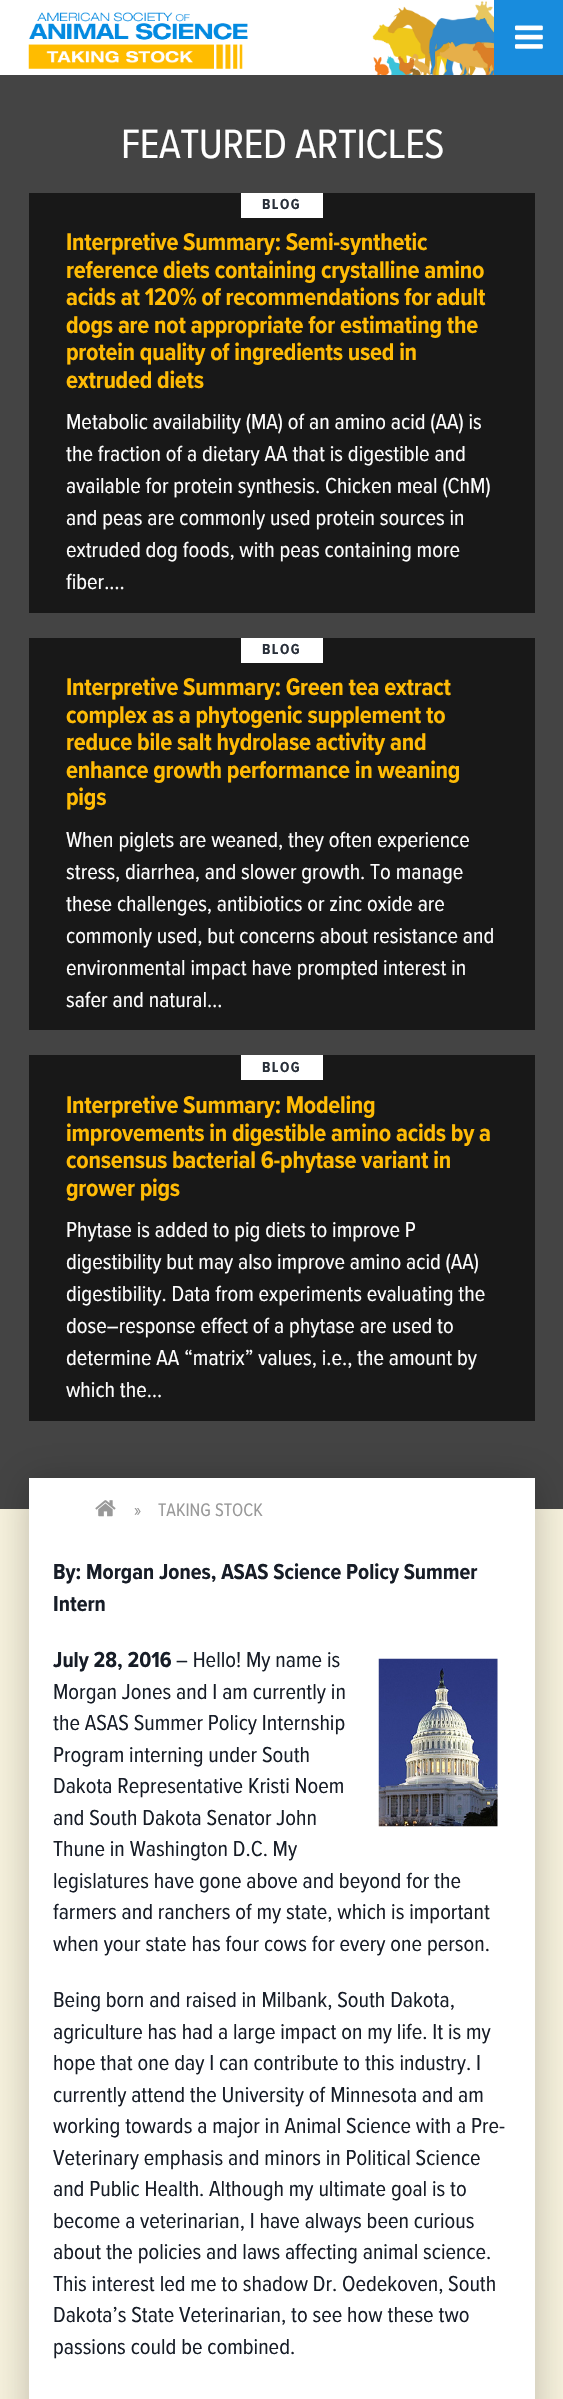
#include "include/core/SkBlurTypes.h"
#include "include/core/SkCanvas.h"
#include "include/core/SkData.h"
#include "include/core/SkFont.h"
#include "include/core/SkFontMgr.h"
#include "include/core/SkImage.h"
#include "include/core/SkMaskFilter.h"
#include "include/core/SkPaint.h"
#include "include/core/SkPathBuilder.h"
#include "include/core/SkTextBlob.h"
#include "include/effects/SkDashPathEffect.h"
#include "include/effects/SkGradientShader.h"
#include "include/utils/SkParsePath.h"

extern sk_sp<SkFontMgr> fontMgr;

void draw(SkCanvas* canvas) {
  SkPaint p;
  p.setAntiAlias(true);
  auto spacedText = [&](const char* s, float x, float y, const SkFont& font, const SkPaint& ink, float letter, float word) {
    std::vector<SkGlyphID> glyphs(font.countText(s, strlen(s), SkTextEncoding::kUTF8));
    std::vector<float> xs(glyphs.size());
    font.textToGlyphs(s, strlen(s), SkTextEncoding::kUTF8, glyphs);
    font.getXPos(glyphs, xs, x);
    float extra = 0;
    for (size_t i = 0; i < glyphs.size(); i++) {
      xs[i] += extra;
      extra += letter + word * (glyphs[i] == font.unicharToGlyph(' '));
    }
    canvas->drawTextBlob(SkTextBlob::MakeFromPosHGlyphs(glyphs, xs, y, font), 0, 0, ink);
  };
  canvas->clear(SkColorSetRGB(247, 242, 221));
  p.setColor(SK_ColorWHITE);
  canvas->drawRect(SkRect::MakeLTRB(0, 0, 494, 75), p);
  canvas->drawImageRect(SkImages::DeferredFromEncodedData(SkData::MakeFromFileName("images/1.png")), SkRect::MakeLTRB(372, 1, 494, 75), SkSamplingOptions());
  canvas->drawImageRect(SkImages::DeferredFromEncodedData(SkData::MakeFromFileName("images/2.png")), SkRect::MakeLTRB(28, 12, 248, 69), SkSamplingOptions());
  p.setColor(SkColorSetRGB(24, 140, 221));
  canvas->drawRect(SkRect::MakeLTRB(494, 0, 563, 75), p);
  canvas->drawImageRect(SkImages::DeferredFromEncodedData(SkData::MakeFromFileName("images/3.png")), SkRect::MakeLTRB(515, 25, 543, 49), SkSamplingOptions());
  p.setColor(SkColorSetRGB(68, 68, 68));
  canvas->drawRect(SkRect::MakeLTRB(0, 75, 563, 1509), p);
  p.setColor(SkColorSetRGB(24, 24, 24));
  canvas->drawRect(SkRect::MakeLTRB(29, 193, 535, 613), p);
  p.setColor(SK_ColorWHITE);
  canvas->drawRect(SkRect::MakeLTRB(241, 193, 323, 218), p);
  p.setColor(SkColorSetRGB(24, 24, 24));
  canvas->drawRect(SkRect::MakeLTRB(29, 638, 535, 1030), p);
  p.setColor(SK_ColorWHITE);
  canvas->drawRect(SkRect::MakeLTRB(241, 638, 323, 663), p);
  p.setColor(SkColorSetRGB(24, 24, 24));
  canvas->drawRect(SkRect::MakeLTRB(29, 1055, 535, 1421), p);
  p.setColor(SK_ColorWHITE);
  canvas->drawRect(SkRect::MakeLTRB(241, 1055, 323, 1080), p);
  p.setColor(SkColorSetARGB(59, 0, 0, 0));
  p.setMaskFilter(SkMaskFilter::MakeBlur(kNormal_SkBlurStyle, 18));
  canvas->drawRect(SkRect::MakeLTRB(29, 1481, 535, 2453), p);
  p.setMaskFilter(nullptr);
  p.setColor(SK_ColorWHITE);
  canvas->drawRect(SkRect::MakeLTRB(29, 1478, 535, 2399), p);
  canvas->drawImageRect(SkImages::DeferredFromEncodedData(SkData::MakeFromFileName("images/4.png")), SkRect::MakeLTRB(95, 1500, 116, 1517), SkSamplingOptions());
  canvas->drawImageRect(SkImages::DeferredFromEncodedData(SkData::MakeFromFileName("images/5.png")), SkRect::MakeLTRB(378, 1658, 498, 1827), SkSamplingOptions());
  SkFont font1(fontMgr->matchFamilyStyle("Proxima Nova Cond", SkFontStyle::Normal()), 42.5f);
  font1.setSubpixel(true);
  spacedText("FEATURED ARTICLES", 121, 158, font1, p, -0.4f, 0);
  SkFont font2(fontMgr->matchFamilyStyle("Proxima Nova Cond", SkFontStyle::Bold()), 15);
  font2.setSubpixel(true);
  p.setColor(SkColorSetRGB(40, 47, 57));
  spacedText("BLOG", 262, 209, font2, p, 1.5f, 0);
  SkFont font3(fontMgr->matchFamilyStyle("Proxima Nova Cond", SkFontStyle::Bold()), 25);
  font3.setSubpixel(true);
  p.setColor(SkColorSetRGB(255, 187, 5));
  spacedText("Interpretive Summary: Semi-synthetic", 66, 250, font3, p, -0.25f, 0);
  spacedText("reference diets containing crystalline amino", 66, 278, font3, p, -0.25f, 0);
  spacedText("acids at 120% of recommendations for adult", 66, 305, font3, p, -0.25f, 0);
  spacedText("dogs are not appropriate for estimating the", 66, 333, font3, p, -0.25f, 0);
  spacedText("protein quality of ingredients used in", 66, 360, font3, p, -0.25f, 0);
  spacedText("extruded diets", 66, 388, font3, p, -0.25f, 0);
  SkFont font4(fontMgr->matchFamilyStyle("Proxima Nova Cond", SkFontStyle::Normal()), 22.5f);
  font4.setSubpixel(true);
  p.setColor(SK_ColorWHITE);
  canvas->drawString("Metabolic availability (MA) of an amino acid (AA) is", 66, 429, font4, p);
  canvas->drawString("the fraction of a dietary AA that is digestible and", 66, 461, font4, p);
  canvas->drawString("available for protein synthesis. Chicken meal (ChM)", 66, 493, font4, p);
  canvas->drawString("and peas are commonly used protein sources in", 66, 525, font4, p);
  canvas->drawString("extruded dog foods, with peas containing more", 66, 557, font4, p);
  canvas->drawString("fiber.…", 66, 589, font4, p);
  p.setColor(SkColorSetRGB(40, 47, 57));
  spacedText("BLOG", 262, 654, font2, p, 1.5f, 0);
  p.setColor(SkColorSetRGB(255, 187, 5));
  spacedText("Interpretive Summary: Green tea extract", 66, 695, font3, p, -0.25f, 0);
  spacedText("complex as a phytogenic supplement to", 66, 723, font3, p, -0.25f, 0);
  spacedText("reduce bile salt hydrolase activity and", 66, 750, font3, p, -0.25f, 0);
  spacedText("enhance growth performance in weaning", 66, 778, font3, p, -0.25f, 0);
  spacedText("pigs", 66, 805, font3, p, -0.25f, 0);
  p.setColor(SK_ColorWHITE);
  canvas->drawString("When piglets are weaned, they often experience", 66, 847, font4, p);
  canvas->drawString("stress, diarrhea, and slower growth. To manage", 66, 879, font4, p);
  canvas->drawString("these challenges, antibiotics or zinc oxide are", 66, 911, font4, p);
  canvas->drawString("commonly used, but concerns about resistance and", 66, 943, font4, p);
  canvas->drawString("environmental impact have prompted interest in", 66, 975, font4, p);
  canvas->drawString("safer and natural…", 66, 1007, font4, p);
  p.setColor(SkColorSetRGB(40, 47, 57));
  spacedText("BLOG", 262, 1072, font2, p, 1.5f, 0);
  p.setColor(SkColorSetRGB(255, 187, 5));
  spacedText("Interpretive Summary: Modeling", 66, 1113, font3, p, -0.25f, 0);
  spacedText("improvements in digestible amino acids by a", 66, 1141, font3, p, -0.25f, 0);
  spacedText("consensus bacterial 6-phytase variant in", 66, 1168, font3, p, -0.25f, 0);
  spacedText("grower pigs", 66, 1196, font3, p, -0.25f, 0);
  p.setColor(SK_ColorWHITE);
  canvas->drawString("Phytase is added to pig diets to improve P", 66, 1237, font4, p);
  canvas->drawString("digestibility but may also improve amino acid (AA)", 66, 1269, font4, p);
  canvas->drawString("digestibility. Data from experiments evaluating the", 66, 1301, font4, p);
  canvas->drawString("dose–response effect of a phytase are used to", 66, 1333, font4, p);
  canvas->drawString("determine AA “matrix” values, i.e., the amount by", 66, 1365, font4, p);
  canvas->drawString("which the…", 66, 1397, font4, p);
  SkFont font5(fontMgr->matchFamilyStyle("Proxima Nova Cond", SkFontStyle::Normal()), 18.75f);
  font5.setSubpixel(true);
  p.setColor(SkColorSetRGB(153, 153, 153));
  canvas->drawString("»", 134, 1516, font5, p);
  canvas->drawString("TAKING STOCK", 158, 1516, font5, p);
  SkFont font6(fontMgr->matchFamilyStyle("Proxima Nova Cond", SkFontStyle::Bold()), 22.5f);
  font6.setSubpixel(true);
  p.setColor(SkColorSetRGB(23, 29, 39));
  canvas->drawString("By: Morgan Jones, ASAS Science Policy Summer", 53, 1579, font6, p);
  canvas->drawString("Intern", 53, 1611, font6, p);
  canvas->drawString("July 28, 2016", 53, 1667, font6, p);
  canvas->drawString("– Hello! My name is", 176, 1667, font4, p);
  canvas->drawString("Morgan Jones and I am currently in", 53, 1699, font4, p);
  canvas->drawString("the ASAS Summer Policy Internship", 53, 1730, font4, p);
  canvas->drawString("Program interning under South", 53, 1762, font4, p);
  canvas->drawString("Dakota Representative Kristi Noem", 53, 1793, font4, p);
  canvas->drawString("and South Dakota Senator John", 53, 1825, font4, p);
  canvas->drawString("Thune in Washington D.C. My", 53, 1856, font4, p);
  canvas->drawString("legislatures have gone above and beyond for the", 53, 1888, font4, p);
  canvas->drawString("farmers and ranchers of my state, which is important", 53, 1919, font4, p);
  canvas->drawString("when your state has four cows for every one person.", 53, 1951, font4, p);
  canvas->drawString("Being born and raised in Milbank, South Dakota,", 53, 2007, font4, p);
  canvas->drawString("agriculture has had a large impact on my life. It is my", 53, 2039, font4, p);
  canvas->drawString("hope that one day I can contribute to this industry. I", 53, 2070, font4, p);
  canvas->drawString("currently attend the University of Minnesota and am", 53, 2102, font4, p);
  canvas->drawString("working towards a major in Animal Science with a Pre-", 53, 2133, font4, p);
  canvas->drawString("Veterinary emphasis and minors in Political Science", 53, 2165, font4, p);
  canvas->drawString("and Public Health. Although my ultimate goal is to", 53, 2196, font4, p);
  canvas->drawString("become a veterinarian, I have always been curious", 53, 2228, font4, p);
  canvas->drawString("about the policies and laws affecting animal science.", 53, 2259, font4, p);
  canvas->drawString("This interest led me to shadow Dr. Oedekoven, South", 53, 2291, font4, p);
  canvas->drawString("Dakota’s State Veterinarian, to see how these two", 53, 2322, font4, p);
  canvas->drawString("passions could be combined.", 53, 2354, font4, p);
}
